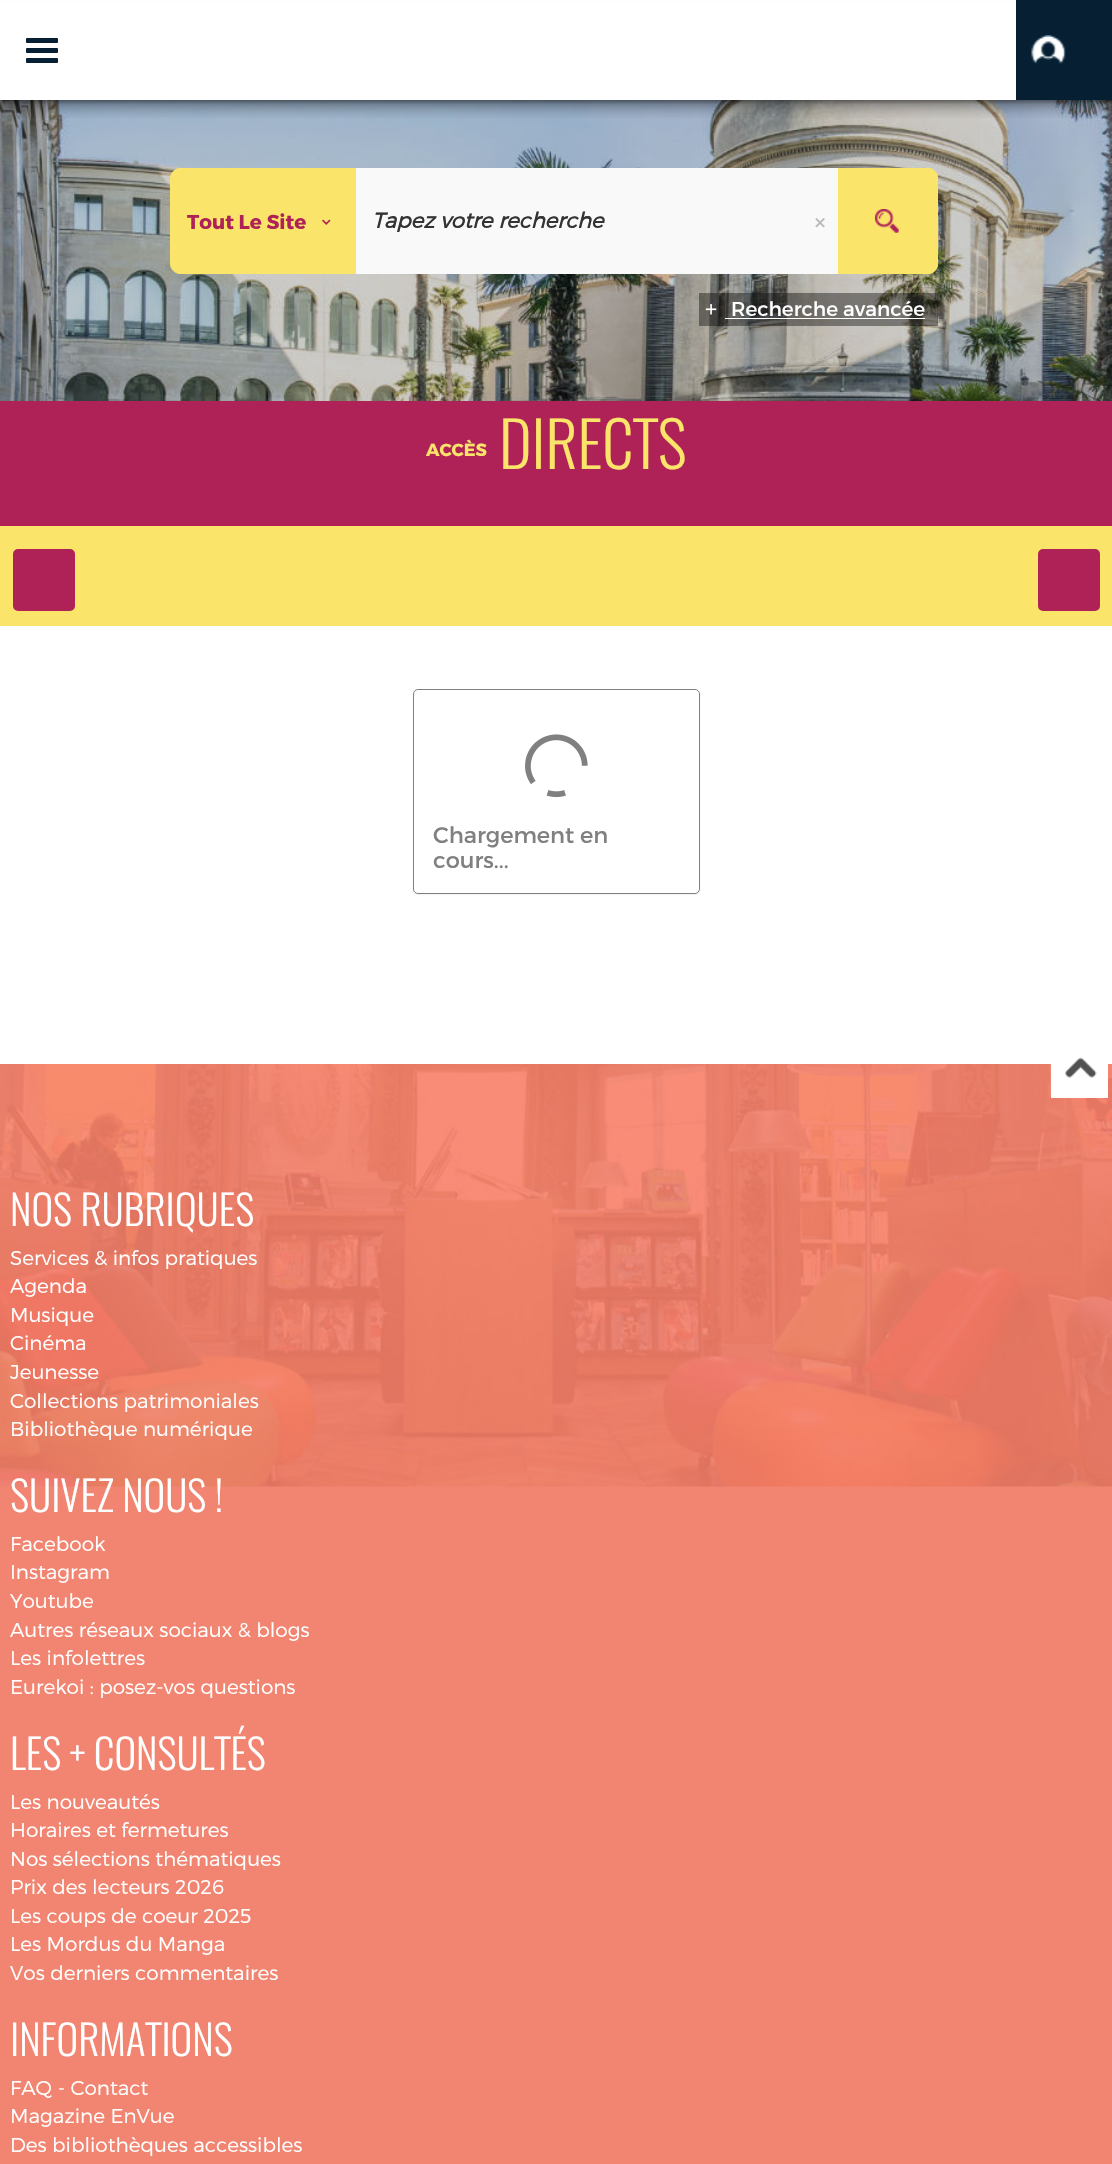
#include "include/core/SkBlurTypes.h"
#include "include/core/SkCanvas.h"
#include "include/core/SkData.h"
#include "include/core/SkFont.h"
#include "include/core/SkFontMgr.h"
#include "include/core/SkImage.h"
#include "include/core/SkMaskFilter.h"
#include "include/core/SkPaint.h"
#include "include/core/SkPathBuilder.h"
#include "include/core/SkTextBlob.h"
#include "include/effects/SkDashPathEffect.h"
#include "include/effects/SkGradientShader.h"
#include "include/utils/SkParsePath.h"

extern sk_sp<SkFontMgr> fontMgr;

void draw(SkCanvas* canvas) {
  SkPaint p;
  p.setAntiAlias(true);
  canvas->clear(SK_ColorWHITE);
  canvas->drawImageRect(SkImages::DeferredFromEncodedData(SkData::MakeFromFileName("images/1.png")), SkRect::MakeLTRB(0, 100, 1112, 401), SkSamplingOptions());
  p.setStyle(SkPaint::kStroke_Style);
  p.setStrokeWidth(1);
  p.setColor(SkColorSetARGB(20, 0, 0, 0));
  canvas->drawRect(SkRect::MakeLTRB(-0.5f, -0.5f, 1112.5f, 100.5f), p);
  p.setStyle(SkPaint::kFill_Style);
  p.setColor(SkColorSetARGB(41, 0, 0, 0));
  p.setMaskFilter(SkMaskFilter::MakeBlur(kNormal_SkBlurStyle, 1));
  canvas->drawRect(SkRect::MakeLTRB(0, 3, 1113, 103), p);
  p.setMaskFilter(nullptr);
  p.setColor(SK_ColorWHITE);
  canvas->drawRect(SkRect::MakeLTRB(0, 2, 1016, 100), p);
  canvas->save();
  canvas->clipRect(SkRect::MakeLTRB(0, 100, 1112, 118));
  p.setColor(SkColorSetARGB(128, 0, 0, 0));
  p.setMaskFilter(SkMaskFilter::MakeBlur(kNormal_SkBlurStyle, 7.5f));
  canvas->drawRect(SkRect::MakeLTRB(0, 5, 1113, 105), p);
  p.setMaskFilter(nullptr);
  canvas->restore();
  p.setColor(SkColorSetRGB(7, 31, 50));
  canvas->drawRoundRect(SkRect::MakeLTRB(26, 38, 58, 43), 1, 1, p);
  canvas->drawRoundRect(SkRect::MakeLTRB(26, 48, 58, 53), 1, 1, p);
  canvas->drawRoundRect(SkRect::MakeLTRB(26, 58, 58, 63), 1, 1, p);
  canvas->drawRect(SkRect::MakeLTRB(1016, 0, 1112, 100), p);
  canvas->drawImageRect(SkImages::DeferredFromEncodedData(SkData::MakeFromFileName("images/2.png")), SkRect::MakeLTRB(1031, 35, 1066, 64), SkSamplingOptions());
  p.setColor(SkColorSetRGB(250, 228, 106));
  canvas->drawPath(SkPathBuilder().moveTo(180, 168.5f).lineTo(357.5f, 168.5f).lineTo(357.5f, 273.5f).lineTo(180, 273.5f).cubicTo(175, 273.5f, 170.5f, 269, 170.5f, 264).lineTo(170.5f, 178).cubicTo(170.5f, 173, 175, 168.5f, 180, 168.5f).close().detach(), p);
  p.setStyle(SkPaint::kStroke_Style);
  canvas->drawPath(SkPathBuilder().moveTo(180, 168.5f).lineTo(357.5f, 168.5f).lineTo(357.5f, 273.5f).lineTo(180, 273.5f).cubicTo(175, 273.5f, 170.5f, 269, 170.5f, 264).lineTo(170.5f, 178).cubicTo(170.5f, 173, 175, 168.5f, 180, 168.5f).close().detach(), p);
  canvas->drawImageRect(SkImages::DeferredFromEncodedData(SkData::MakeFromFileName("images/3.png")), SkRect::MakeLTRB(322, 219, 331, 225), SkSamplingOptions());
  p.setStyle(SkPaint::kFill_Style);
  p.setColor(SkColorSetRGB(249, 249, 249));
  canvas->drawRect(SkRect::MakeLTRB(356, 168, 838, 274), p);
  canvas->drawImageRect(SkImages::DeferredFromEncodedData(SkData::MakeFromFileName("images/4.png")), SkRect::MakeLTRB(815, 218, 825, 228), SkSamplingOptions());
  p.setColor(SkColorSetRGB(250, 228, 106));
  canvas->drawPath(SkPathBuilder().moveTo(838, 168).lineTo(928, 168).cubicTo(933.5f, 168, 938, 172.5f, 938, 178).lineTo(938, 264).cubicTo(938, 269.5f, 933.5f, 274, 928, 274).lineTo(838, 274).close().detach(), p);
  canvas->drawImageRect(SkImages::DeferredFromEncodedData(SkData::MakeFromFileName("images/5.png")), SkRect::MakeLTRB(875, 209, 899, 233), SkSamplingOptions());
  p.setStyle(SkPaint::kStroke_Style);
  canvas->drawPath(SkPathBuilder().moveTo(838.5f, 168.5f).lineTo(928, 168.5f).cubicTo(933, 168.5f, 937.5f, 173, 937.5f, 178).lineTo(937.5f, 264).cubicTo(937.5f, 269, 933, 273.5f, 928, 273.5f).lineTo(838.5f, 273.5f).close().detach(), p);
  p.setStyle(SkPaint::kFill_Style);
  p.setColor(SkColorSetARGB(102, 0, 0, 0));
  canvas->drawRect(SkRect::MakeLTRB(699, 293, 938, 326), p);
  canvas->drawImageRect(SkImages::DeferredFromEncodedData(SkData::MakeFromFileName("images/6.png")), SkRect::MakeLTRB(705, 304, 717, 315), SkSamplingOptions());
  p.setColor(SK_ColorWHITE);
  canvas->drawRect(SkRect::MakeLTRB(725, 318, 925, 319), p);
  p.setColor(SkColorSetRGB(175, 34, 88));
  canvas->drawRect(SkRect::MakeLTRB(0, 401, 1112, 526), p);
  p.setColor(SkColorSetRGB(250, 228, 106));
  canvas->drawRect(SkRect::MakeLTRB(0, 526, 1112, 626), p);
  p.setColor(SkColorSetRGB(175, 34, 88));
  canvas->drawRoundRect(SkRect::MakeLTRB(13, 549, 75, 611), 5, 5, p);
  canvas->drawRoundRect(SkRect::MakeLTRB(1038, 549, 1100, 611), 5, 5, p);
  p.setColor(SkColorSetARGB(13, 0, 0, 0));
  p.setMaskFilter(SkMaskFilter::MakeBlur(kNormal_SkBlurStyle, 0.5f));
  canvas->drawRoundRect(SkRect::MakeLTRB(413, 690, 700, 895), 5, 5, p);
  p.setMaskFilter(nullptr);
  p.setColor(SK_ColorWHITE);
  canvas->drawRoundRect(SkRect::MakeLTRB(413.5f, 689.5f, 699.5f, 893.5f), 4.5f, 4.5f, p);
  p.setStyle(SkPaint::kStroke_Style);
  p.setColor(SkColorSetRGB(128, 128, 128));
  canvas->drawRoundRect(SkRect::MakeLTRB(413.5f, 689.5f, 699.5f, 893.5f), 4.5f, 4.5f, p);
  canvas->drawImageRect(SkImages::DeferredFromEncodedData(SkData::MakeFromFileName("images/7.png")), SkRect::MakeLTRB(525, 734, 588, 798), SkSamplingOptions());
  p.setStyle(SkPaint::kFill_Style);
  p.setColor(SkColorSetRGB(241, 133, 113));
  canvas->drawRect(SkRect::MakeLTRB(0, 1486, 1112, 2164), p);
  canvas->drawImageRect(SkImages::DeferredFromEncodedData(SkData::MakeFromFileName("images/9.png")), SkRect::MakeLTRB(0, 1064, 1112, 1487), SkSamplingOptions());
  p.setColor(SK_ColorWHITE);
  canvas->drawRect(SkRect::MakeLTRB(1051, 1064, 1108, 1098), p);
  canvas->drawImageRect(SkImages::DeferredFromEncodedData(SkData::MakeFromFileName("images/8.png")), SkRect::MakeLTRB(1064, 1057, 1097, 1078), SkSamplingOptions());
  SkFont font1(fontMgr->matchFamilyStyle("Montserrat", SkFontStyle::Bold()), 20);
  font1.setSubpixel(true);
  p.setColor(SkColorSetRGB(175, 34, 88));
  canvas->drawString("Tout Le Site", 187, 229, font1, p);
  SkFont font2(fontMgr->matchFamilyStyle("Montserrat", SkFontStyle::BoldItalic()), 21.25f);
  font2.setSubpixel(true);
  p.setColor(SkColorSetRGB(51, 51, 51));
  canvas->drawString("Tapez votre recherche", 372, 228, font2, p);
  SkFont font3(fontMgr->matchFamilyStyle("Montserrat", SkFontStyle::Normal()), 20);
  font3.setSubpixel(true);
  p.setColor(SK_ColorWHITE);
  canvas->drawString("Recherche avancée", 731, 316, font3, p);
  SkFont font4(fontMgr->matchFamilyStyle("Montserrat", SkFontStyle::Bold()), 17.5f);
  font4.setSubpixel(true);
  p.setColor(SkColorSetRGB(250, 228, 106));
  canvas->drawString("ACCÈS", 426, 456, font4, p);
  SkFont font5(fontMgr->matchFamilyStyle("Oswald", SkFontStyle(300, SkFontStyle::kNormal_Width, SkFontStyle::kUpright_Slant)), 62.5f);
  font5.setSubpixel(true);
  canvas->drawString("DIRECTS", 499, 469, font5, p);
  SkFont font6(fontMgr->matchFamilyStyle("Montserrat", SkFontStyle::Normal()), 22.5f);
  font6.setSubpixel(true);
  p.setColor(SkColorSetRGB(128, 128, 128));
  canvas->drawString("Chargement en", 433, 843, font6, p);
  canvas->drawString("cours...", 433, 868, font6, p);
  SkFont font7(fontMgr->matchFamilyStyle("Oswald", SkFontStyle(300, SkFontStyle::kNormal_Width, SkFontStyle::kUpright_Slant)), 41.25f);
  font7.setSubpixel(true);
  p.setColor(SK_ColorWHITE);
  canvas->drawString("NOS RUBRIQUES", 10, 1226, font7, p);
  SkFont font8(fontMgr->matchFamilyStyle("Montserrat", SkFontStyle(300, SkFontStyle::kNormal_Width, SkFontStyle::kUpright_Slant)), 20);
  font8.setSubpixel(true);
  canvas->drawString("Services & infos pratiques", 10, 1265, font8, p);
  canvas->drawString("Agenda", 10, 1293, font8, p);
  canvas->drawString("Musique", 10, 1322, font8, p);
  canvas->drawString("Cinéma", 10, 1350, font8, p);
  canvas->drawString("Jeunesse", 10, 1379, font8, p);
  canvas->drawString("Collections patrimoniales", 10, 1408, font8, p);
  canvas->drawString("Bibliothèque numérique", 10, 1436, font8, p);
  canvas->drawString("SUIVEZ NOUS !", 10, 1512, font7, p);
  canvas->drawString("Facebook", 10, 1551, font8, p);
  canvas->drawString("Instagram", 10, 1579, font8, p);
  canvas->drawString("Youtube", 10, 1608, font8, p);
  canvas->drawString("Autres réseaux sociaux & blogs", 10, 1637, font8, p);
  canvas->drawString("Les infolettres", 10, 1665, font8, p);
  canvas->drawString("Eurekoi : posez-vos questions", 10, 1694, font8, p);
  canvas->drawString("LES + CONSULTÉS", 10, 1770, font7, p);
  canvas->drawString("Les nouveautés", 10, 1809, font8, p);
  canvas->drawString("Horaires et fermetures", 10, 1837, font8, p);
  canvas->drawString("Nos sélections thématiques", 10, 1866, font8, p);
  canvas->drawString("Prix des lecteurs 2026", 10, 1894, font8, p);
  canvas->drawString("Les coups de coeur 2025", 10, 1923, font8, p);
  canvas->drawString("Les Mordus du Manga", 10, 1951, font8, p);
  canvas->drawString("Vos derniers commentaires", 10, 1980, font8, p);
  canvas->drawString("INFORMATIONS", 10, 2056, font7, p);
  canvas->drawString("FAQ - Contact", 10, 2095, font8, p);
  canvas->drawString("Magazine EnVue", 10, 2123, font8, p);
  canvas->drawString("Des bibliothèques accessibles", 10, 2152, font8, p);
}
